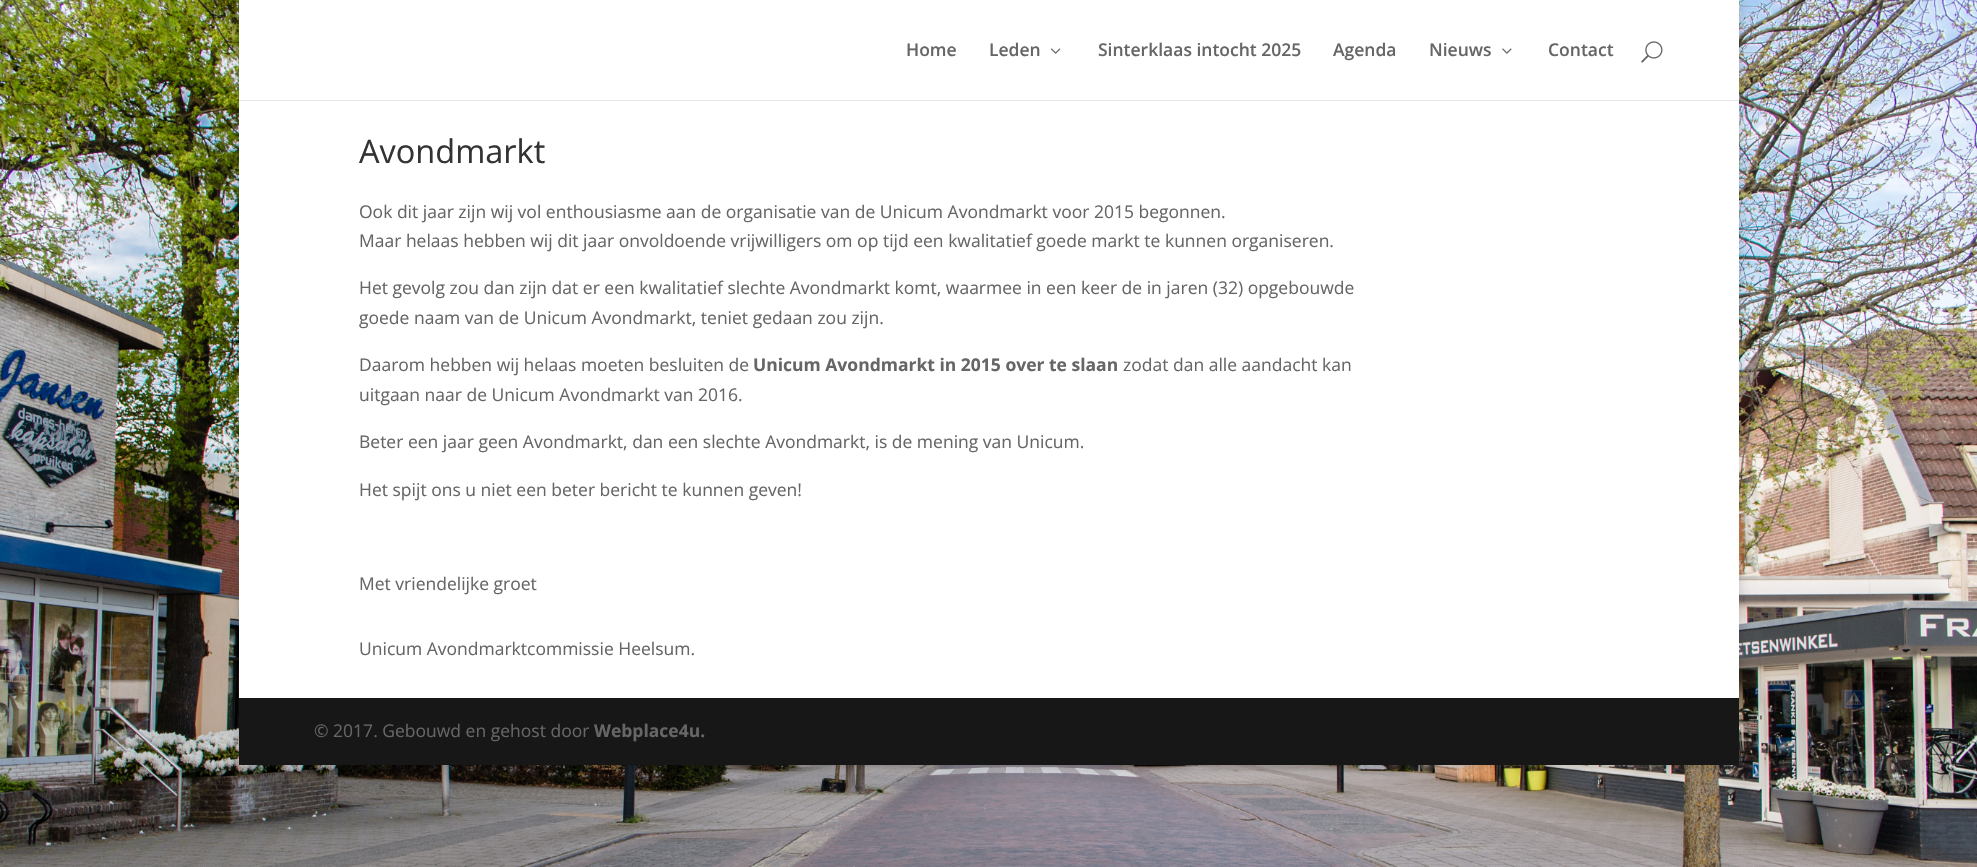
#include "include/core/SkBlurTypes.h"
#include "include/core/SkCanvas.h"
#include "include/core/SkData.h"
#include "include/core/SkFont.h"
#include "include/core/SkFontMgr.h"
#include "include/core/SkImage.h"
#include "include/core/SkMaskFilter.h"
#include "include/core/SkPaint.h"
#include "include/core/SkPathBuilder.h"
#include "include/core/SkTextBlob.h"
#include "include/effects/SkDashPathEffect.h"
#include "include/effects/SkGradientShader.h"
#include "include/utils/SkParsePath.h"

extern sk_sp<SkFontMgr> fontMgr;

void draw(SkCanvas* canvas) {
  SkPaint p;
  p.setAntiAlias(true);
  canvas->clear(SK_ColorWHITE);
  canvas->drawImageRect(SkImages::DeferredFromEncodedData(SkData::MakeFromFileName("images/1.png")), SkRect::MakeLTRB(0, 0, 1977, 867), SkSamplingOptions());
  p.setColor(SkColorSetARGB(51, 0, 0, 0));
  p.setMaskFilter(SkMaskFilter::MakeBlur(kNormal_SkBlurStyle, 6));
  canvas->drawRect(SkRect::MakeLTRB(239, 0, 1739, 765), p);
  p.setMaskFilter(nullptr);
  p.setColor(SkColorSetRGB(230, 230, 230));
  canvas->drawPath(SkPathBuilder().moveTo(239, 100).lineTo(239, 101).lineTo(1739, 101).lineTo(1739, 1).lineTo(1739, 100).close().detach(), p);
  p.setColor(SK_ColorWHITE);
  canvas->drawRect(SkRect::MakeLTRB(239, 0, 1739, 100), p);
  canvas->drawImageRect(SkImages::DeferredFromEncodedData(SkData::MakeFromFileName("images/2.png")), SkRect::MakeLTRB(1051, 48, 1061, 54), SkSamplingOptions());
  canvas->drawImageRect(SkImages::DeferredFromEncodedData(SkData::MakeFromFileName("images/3.png")), SkRect::MakeLTRB(1502, 48, 1512, 54), SkSamplingOptions());
  canvas->drawImageRect(SkImages::DeferredFromEncodedData(SkData::MakeFromFileName("images/4.png")), SkRect::MakeLTRB(1641, 41, 1663, 63), SkSamplingOptions());
  canvas->drawRect(SkRect::MakeLTRB(239, 101, 1739, 698), p);
  p.setColor(SkColorSetRGB(23, 23, 23));
  canvas->drawRect(SkRect::MakeLTRB(239, 698, 1739, 765), p);
  SkFont font1(fontMgr->matchFamilyStyle("Open Sans", SkFontStyle(600, SkFontStyle::kNormal_Width, SkFontStyle::kUpright_Slant)), 17.5f);
  font1.setSubpixel(true);
  p.setColor(SkColorSetRGB(102, 102, 102));
  canvas->drawString("Home", 906, 56, font1, p);
  canvas->drawString("Leden", 989, 56, font1, p);
  canvas->drawString("Sinterklaas intocht 2025", 1098, 56, font1, p);
  canvas->drawString("Agenda", 1333, 56, font1, p);
  canvas->drawString("Nieuws", 1429, 56, font1, p);
  canvas->drawString("Contact", 1548, 56, font1, p);
  SkFont font2(fontMgr->matchFamilyStyle("Open Sans", SkFontStyle::Normal()), 32.5f);
  font2.setSubpixel(true);
  p.setColor(SkColorSetRGB(51, 51, 51));
  canvas->drawString("Avondmarkt", 359, 163, font2, p);
  SkFont font3(fontMgr->matchFamilyStyle("Open Sans", SkFontStyle::Normal()), 17.5f);
  font3.setSubpixel(true);
  p.setColor(SkColorSetRGB(102, 102, 102));
  canvas->drawString("Ook dit jaar zijn wij vol enthousiasme aan de organisatie van de Unicum Avondmarkt voor 2015 begonnen.", 359, 218, font3, p);
  canvas->drawString("Maar helaas hebben wij dit jaar onvoldoende vrijwilligers om op tijd een kwalitatief goede markt te kunnen organiseren.", 359, 247, font3, p);
  canvas->drawString("Het gevolg zou dan zijn dat er een kwalitatief slechte Avondmarkt komt, waarmee in een keer de in jaren (32) opgebouwde", 359, 294, font3, p);
  canvas->drawString("goede naam van de Unicum Avondmarkt, teniet gedaan zou zijn.", 359, 324, font3, p);
  canvas->drawString("Daarom hebben wij helaas moeten besluiten de", 359, 371, font3, p);
  SkFont font4(fontMgr->matchFamilyStyle("Open Sans", SkFontStyle::Bold()), 17.5f);
  font4.setSubpixel(true);
  canvas->drawString("Unicum Avondmarkt in 2015 over te slaan", 753, 371, font4, p);
  canvas->drawString("zodat dan alle aandacht kan", 1123, 371, font3, p);
  canvas->drawString("uitgaan naar de Unicum Avondmarkt van 2016.", 359, 401, font3, p);
  canvas->drawString("Beter een jaar geen Avondmarkt, dan een slechte Avondmarkt, is de mening van Unicum.", 359, 448, font3, p);
  canvas->drawString("Het spijt ons u niet een beter bericht te kunnen geven!", 359, 496, font3, p);
  canvas->drawString("Met vriendelijke groet", 359, 590, font3, p);
  canvas->drawString("Unicum Avondmarktcommissie Heelsum.", 359, 655, font3, p);
  canvas->drawString("© 2017. Gebouwd en gehost door", 314, 737, font3, p);
  canvas->drawString("Webplace4u.", 594, 737, font4, p);
}
